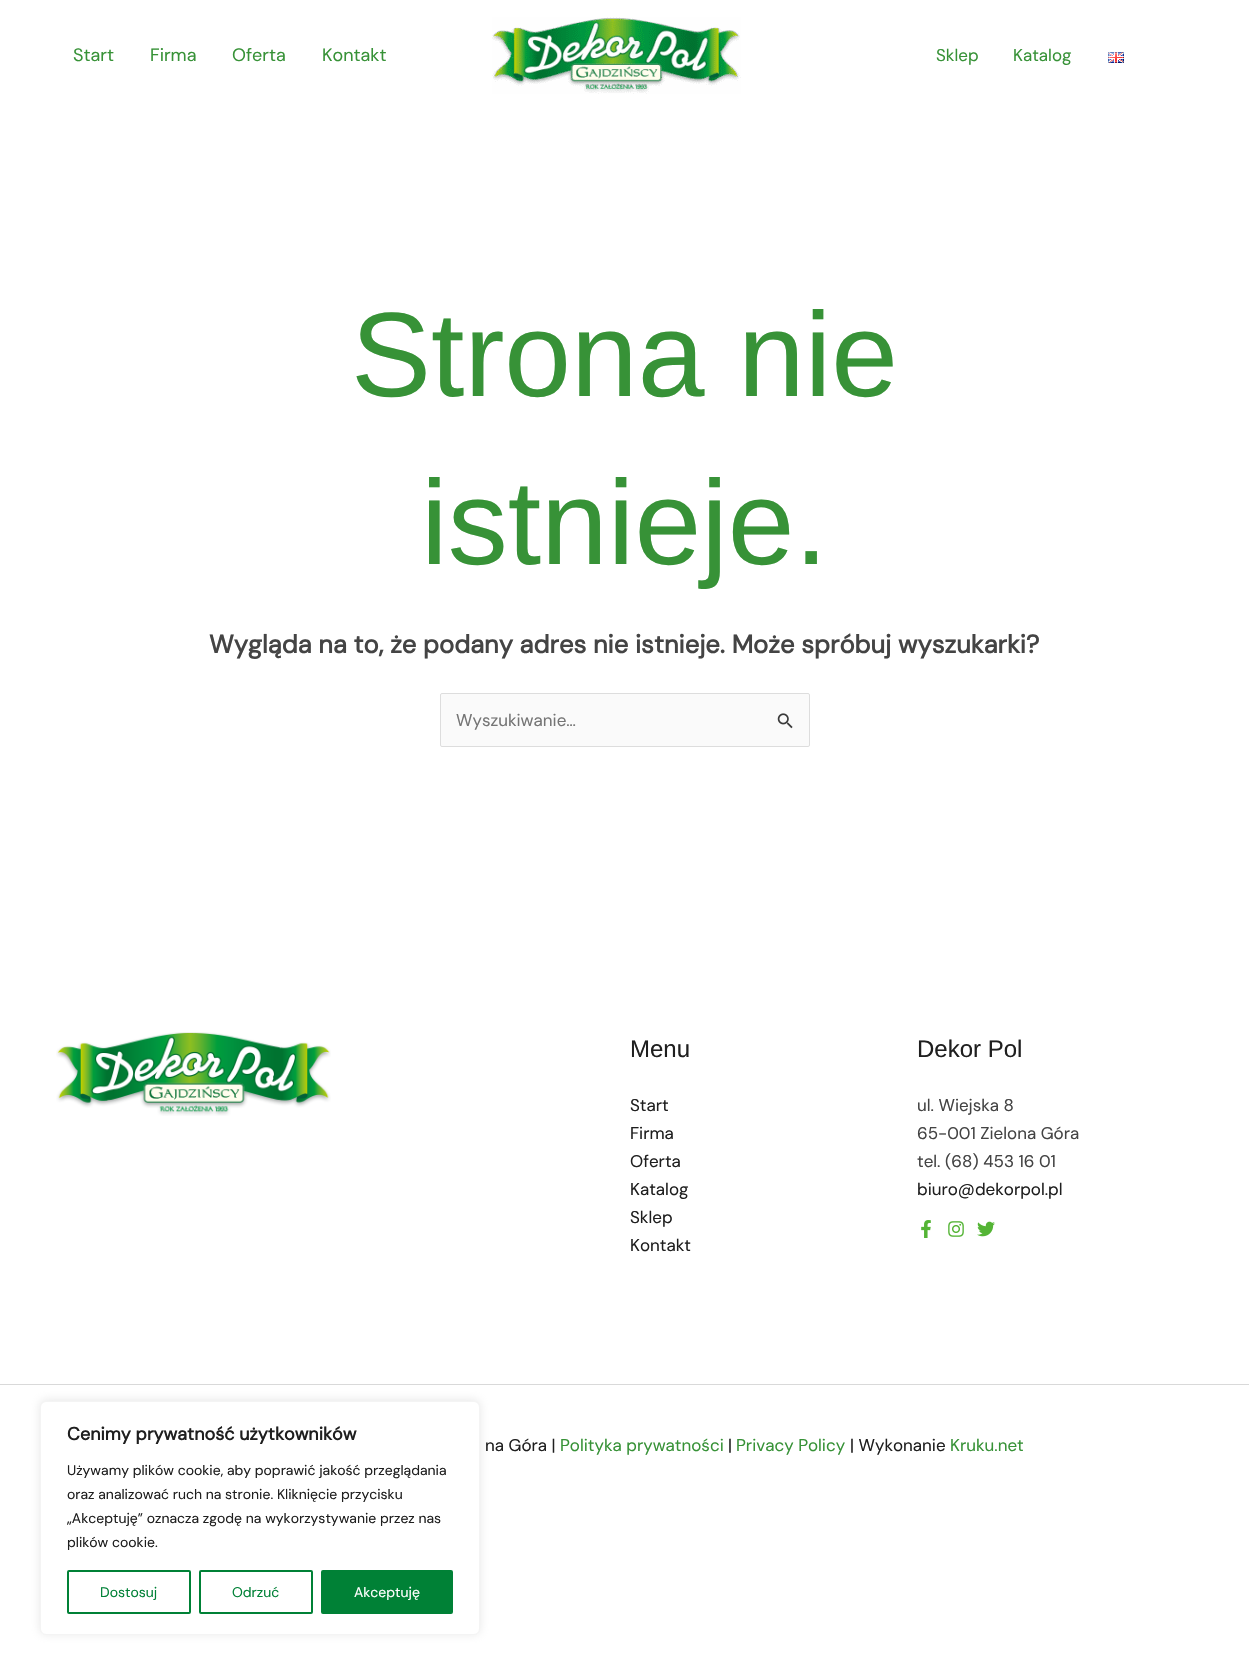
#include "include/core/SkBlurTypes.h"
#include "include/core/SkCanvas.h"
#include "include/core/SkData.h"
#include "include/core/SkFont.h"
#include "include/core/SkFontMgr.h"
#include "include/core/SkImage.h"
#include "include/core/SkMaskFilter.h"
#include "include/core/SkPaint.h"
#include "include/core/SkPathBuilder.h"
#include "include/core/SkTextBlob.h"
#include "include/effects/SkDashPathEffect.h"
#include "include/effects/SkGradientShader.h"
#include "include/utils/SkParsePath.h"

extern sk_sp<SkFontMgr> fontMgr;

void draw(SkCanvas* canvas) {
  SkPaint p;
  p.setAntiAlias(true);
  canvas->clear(SK_ColorWHITE);
  canvas->drawImageRect(SkImages::DeferredFromEncodedData(SkData::MakeFromFileName("images/1.png")), SkRect::MakeLTRB(492, 17, 741, 94), SkSamplingOptions());
  canvas->drawImageRect(SkImages::DeferredFromEncodedData(SkData::MakeFromFileName("images/2.png")), SkRect::MakeLTRB(1108, 52, 1124, 63), SkSamplingOptions());
  p.setColor(SkColorSetRGB(250, 250, 250));
  canvas->drawRoundRect(SkRect::MakeLTRB(440.5f, 693.5f, 809.5f, 746.5f), 1.5f, 1.5f, p);
  p.setStyle(SkPaint::kStroke_Style);
  p.setStrokeWidth(1);
  p.setColor(SkColorSetRGB(221, 221, 221));
  canvas->drawRoundRect(SkRect::MakeLTRB(440.5f, 693.5f, 809.5f, 746.5f), 1.5f, 1.5f, p);
  canvas->drawImageRect(SkImages::DeferredFromEncodedData(SkData::MakeFromFileName("images/3.png")), SkRect::MakeLTRB(777, 713, 793, 729), SkSamplingOptions());
  canvas->drawImageRect(SkImages::DeferredFromEncodedData(SkData::MakeFromFileName("images/4.png")), SkRect::MakeLTRB(56, 1032, 331, 1116), SkSamplingOptions());
  canvas->drawImageRect(SkImages::DeferredFromEncodedData(SkData::MakeFromFileName("images/5.png")), SkRect::MakeLTRB(921, 1220, 931, 1238), SkSamplingOptions());
  canvas->drawImageRect(SkImages::DeferredFromEncodedData(SkData::MakeFromFileName("images/6.png")), SkRect::MakeLTRB(948, 1221, 964, 1237), SkSamplingOptions());
  canvas->drawImageRect(SkImages::DeferredFromEncodedData(SkData::MakeFromFileName("images/7.png")), SkRect::MakeLTRB(977, 1221, 995, 1237), SkSamplingOptions());
  p.setStyle(SkPaint::kFill_Style);
  p.setColor(SkColorSetRGB(217, 217, 217));
  canvas->drawRect(SkRect::MakeLTRB(0, 1384, 1249, 1385), p);
  p.setColor(SkColorSetARGB(77, 172, 171, 171));
  p.setMaskFilter(SkMaskFilter::MakeBlur(kNormal_SkBlurStyle, 5));
  canvas->drawRoundRect(SkRect::MakeLTRB(40, 1400, 480, 1634), 6, 6, p);
  p.setMaskFilter(nullptr);
  p.setColor(SK_ColorWHITE);
  canvas->drawRoundRect(SkRect::MakeLTRB(40.5f, 1401.5f, 479.5f, 1634.5f), 5.5f, 5.5f, p);
  p.setStyle(SkPaint::kStroke_Style);
  p.setColor(SkColorSetRGB(244, 244, 244));
  canvas->drawRoundRect(SkRect::MakeLTRB(40.5f, 1401.5f, 479.5f, 1634.5f), 5.5f, 5.5f, p);
  p.setStrokeWidth(2);
  p.setColor(SkColorSetRGB(0, 129, 54));
  canvas->drawRoundRect(SkRect::MakeLTRB(68, 1571, 190, 1613), 1, 1, p);
  canvas->drawRoundRect(SkRect::MakeLTRB(200, 1571, 312, 1613), 1, 1, p);
  p.setStyle(SkPaint::kFill_Style);
  canvas->drawRoundRect(SkRect::MakeLTRB(322, 1571, 452, 1613), 1, 1, p);
  p.setStyle(SkPaint::kStroke_Style);
  canvas->drawRoundRect(SkRect::MakeLTRB(322, 1571, 452, 1613), 1, 1, p);
  SkFont font1(fontMgr->matchFamilyStyle("DM Sans", SkFontStyle::Normal()), 18);
  font1.setSubpixel(true);
  p.setStyle(SkPaint::kFill_Style);
  p.setColor(SkColorSetRGB(55, 146, 55));
  canvas->drawString("Start", 73, 61, font1, p);
  canvas->drawString("Firma", 150, 61, font1, p);
  canvas->drawString("Oferta", 232, 61, font1, p);
  canvas->drawString("Kontakt", 322, 61, font1, p);
  SkFont font2(fontMgr->matchFamilyStyle("DM Sans", SkFontStyle::Normal()), 17);
  font2.setSubpixel(true);
  canvas->drawString("Sklep", 936, 61, font2, p);
  canvas->drawString("Katalog", 1013, 61, font2, p);
  SkFont font3(fontMgr->matchFamilyStyle("Liberation Sans", SkFontStyle::Normal()), 120);
  font3.setSubpixel(true);
  canvas->drawString("Strona nie", 351, 396, font3, p);
  canvas->drawString("istnieje.", 421, 564, font3, p);
  SkFont font4(fontMgr->matchFamilyStyle("DM Sans", SkFontStyle::Bold()), 25.5f);
  font4.setSubpixel(true);
  p.setColor(SkColorSetRGB(68, 68, 68));
  canvas->drawString("Wygląda na to, że podany adres nie istnieje. Może spróbuj wyszukarki?", 209, 653, font4, p);
  p.setColor(SkColorSetRGB(117, 117, 117));
  canvas->drawString("Wyszukiwanie…", 456, 726, font2, p);
  SkFont font5(fontMgr->matchFamilyStyle("Liberation Sans", SkFontStyle::Normal()), 24);
  font5.setSubpixel(true);
  p.setColor(SkColorSetRGB(31, 31, 31));
  canvas->drawString("Menu", 630, 1057, font5, p);
  canvas->drawString("Start", 630, 1111, font2, p);
  canvas->drawString("Firma", 630, 1139, font2, p);
  canvas->drawString("Oferta", 630, 1167, font2, p);
  canvas->drawString("Katalog", 630, 1195, font2, p);
  canvas->drawString("Sklep", 630, 1223, font2, p);
  canvas->drawString("Kontakt", 630, 1251, font2, p);
  canvas->drawString("Dekor Pol", 917, 1057, font5, p);
  p.setColor(SkColorSetRGB(68, 68, 68));
  canvas->drawString("ul. Wiejska 8", 917, 1111, font2, p);
  canvas->drawString("65-001 Zielona Góra", 917, 1139, font2, p);
  canvas->drawString("tel. (68) 453 16 01", 917, 1167, font2, p);
  p.setColor(SkColorSetRGB(31, 31, 31));
  canvas->drawString("biuro@dekorpol.pl", 917, 1195, font2, p);
  canvas->drawString("na Góra |", 485, 1451, font2, p);
  p.setColor(SkColorSetRGB(55, 146, 55));
  canvas->drawString("Polityka prywatności", 560, 1451, font2, p);
  p.setColor(SkColorSetRGB(31, 31, 31));
  canvas->drawString("|", 728, 1451, font2, p);
  p.setColor(SkColorSetRGB(55, 146, 55));
  canvas->drawString("Privacy Policy", 736, 1451, font2, p);
  p.setColor(SkColorSetRGB(31, 31, 31));
  canvas->drawString("| Wykonanie", 850, 1451, font2, p);
  p.setColor(SkColorSetRGB(55, 146, 55));
  canvas->drawString("Kruku.net", 950, 1451, font2, p);
  SkFont font6(fontMgr->matchFamilyStyle("DM Sans", SkFontStyle::Bold()), 18);
  font6.setSubpixel(true);
  p.setColor(SkColorSetRGB(31, 31, 31));
  canvas->drawString("Cenimy prywatność użytkowników", 67, 1440, font6, p);
  SkFont font7(fontMgr->matchFamilyStyle("DM Sans", SkFontStyle::Normal()), 14);
  font7.setSubpixel(true);
  canvas->drawString("Używamy plików cookie, aby poprawić jakość przeglądania", 67, 1475, font7, p);
  canvas->drawString("oraz analizować ruch na stronie. Kliknięcie przycisku", 67, 1499, font7, p);
  canvas->drawString("„Akceptuję” oznacza zgodę na wykorzystywanie przez nas", 67, 1523, font7, p);
  canvas->drawString("plików cookie.", 67, 1547, font7, p);
  p.setColor(SkColorSetRGB(0, 129, 54));
  canvas->drawString("Dostosuj", 100, 1597, font7, p);
  canvas->drawString("Odrzuć", 232, 1597, font7, p);
  p.setColor(SK_ColorWHITE);
  canvas->drawString("Akceptuję", 354, 1597, font7, p);
}
